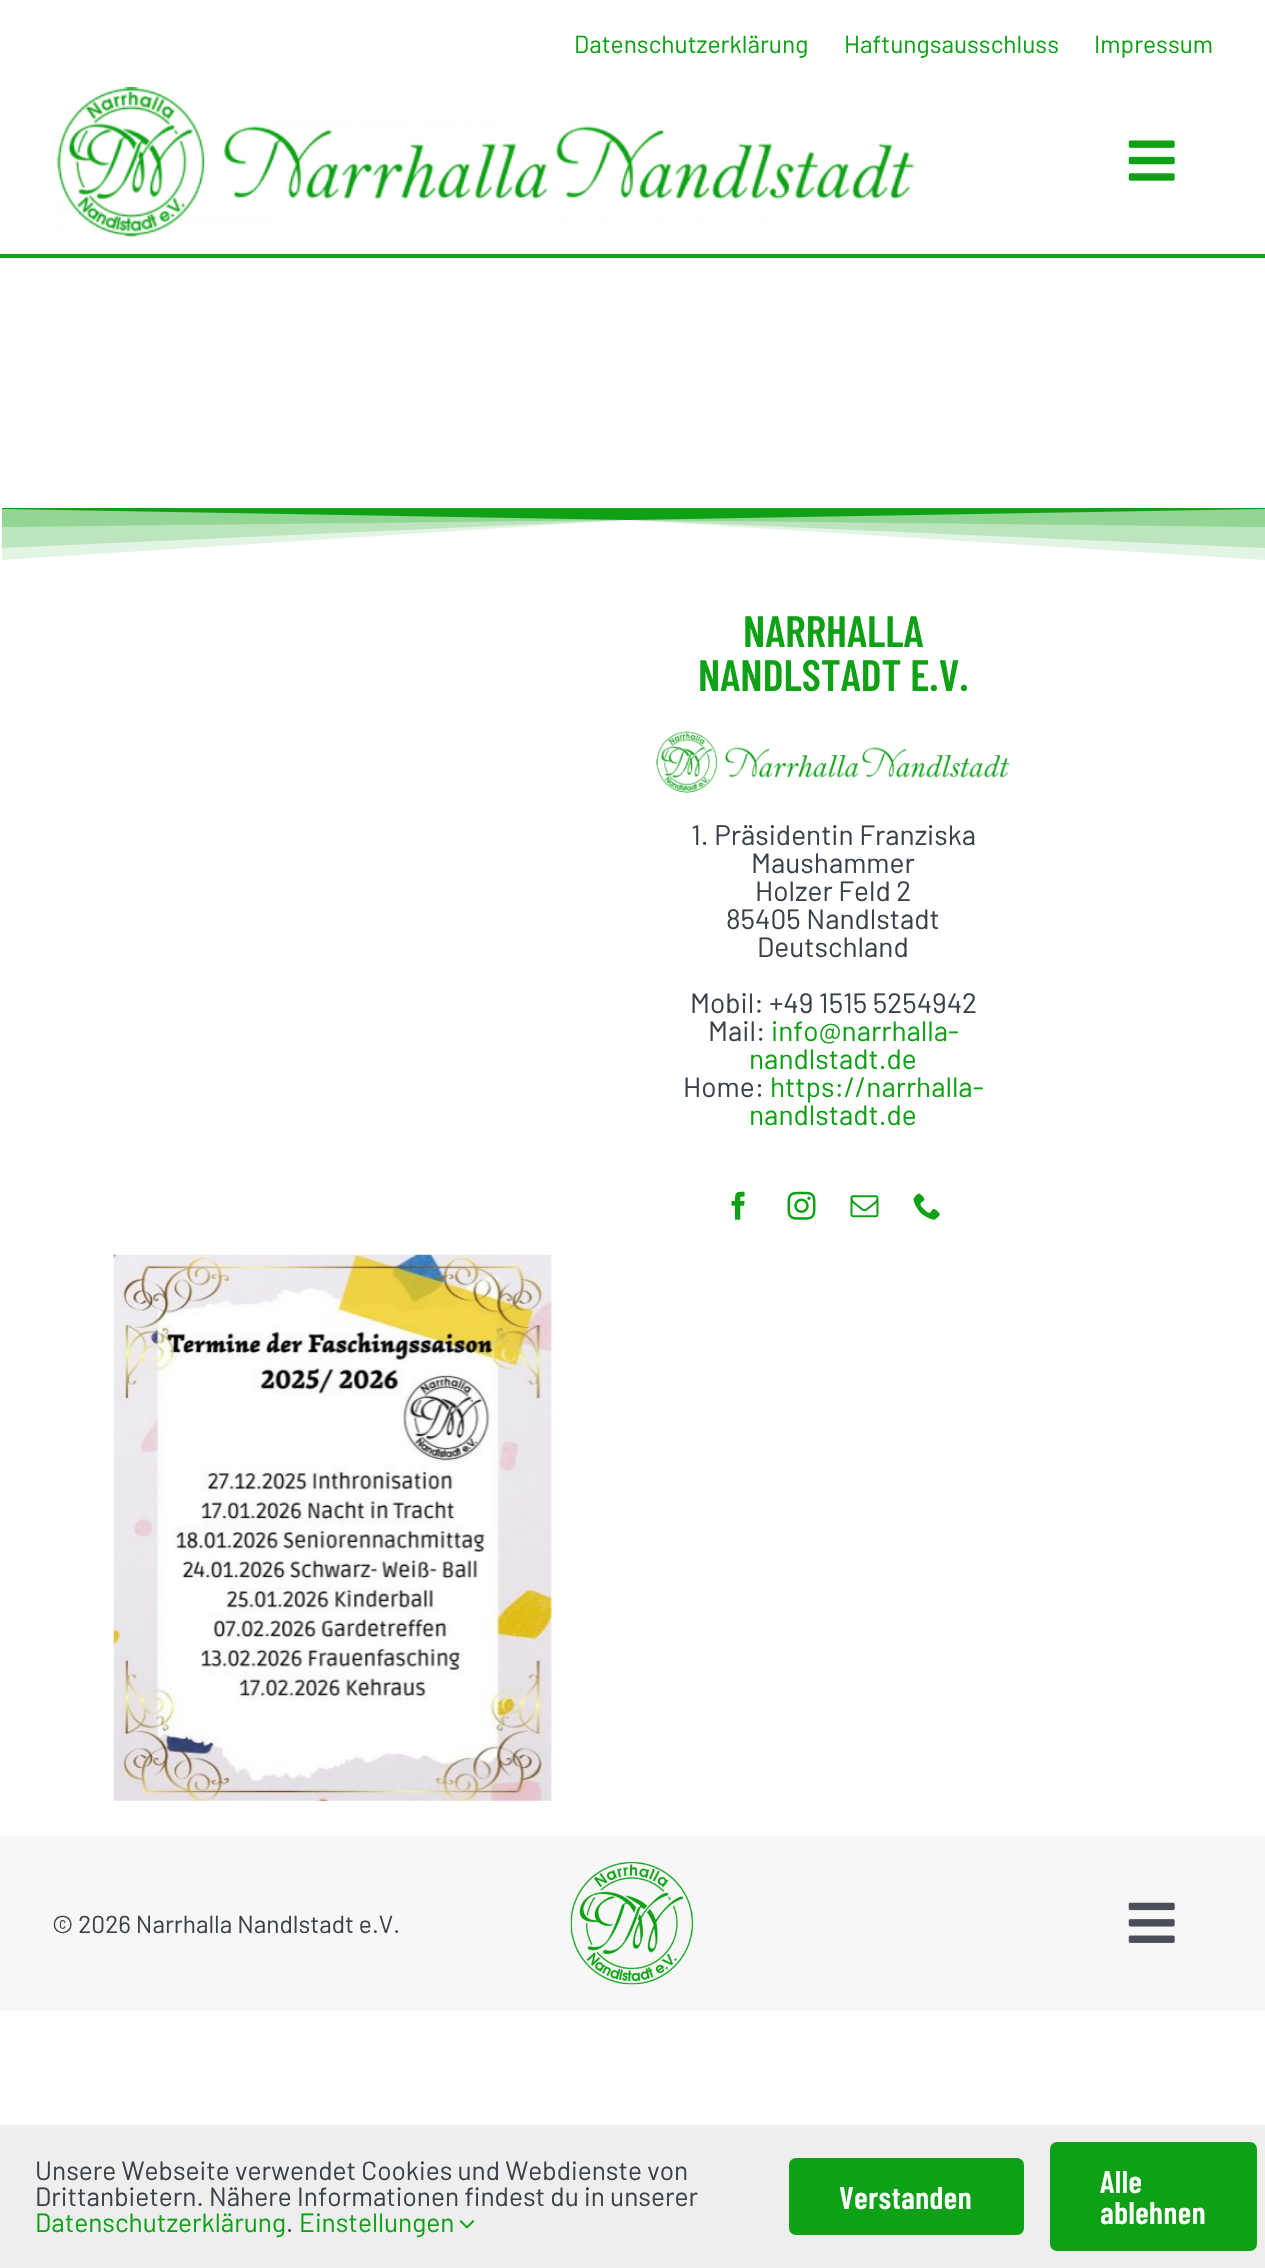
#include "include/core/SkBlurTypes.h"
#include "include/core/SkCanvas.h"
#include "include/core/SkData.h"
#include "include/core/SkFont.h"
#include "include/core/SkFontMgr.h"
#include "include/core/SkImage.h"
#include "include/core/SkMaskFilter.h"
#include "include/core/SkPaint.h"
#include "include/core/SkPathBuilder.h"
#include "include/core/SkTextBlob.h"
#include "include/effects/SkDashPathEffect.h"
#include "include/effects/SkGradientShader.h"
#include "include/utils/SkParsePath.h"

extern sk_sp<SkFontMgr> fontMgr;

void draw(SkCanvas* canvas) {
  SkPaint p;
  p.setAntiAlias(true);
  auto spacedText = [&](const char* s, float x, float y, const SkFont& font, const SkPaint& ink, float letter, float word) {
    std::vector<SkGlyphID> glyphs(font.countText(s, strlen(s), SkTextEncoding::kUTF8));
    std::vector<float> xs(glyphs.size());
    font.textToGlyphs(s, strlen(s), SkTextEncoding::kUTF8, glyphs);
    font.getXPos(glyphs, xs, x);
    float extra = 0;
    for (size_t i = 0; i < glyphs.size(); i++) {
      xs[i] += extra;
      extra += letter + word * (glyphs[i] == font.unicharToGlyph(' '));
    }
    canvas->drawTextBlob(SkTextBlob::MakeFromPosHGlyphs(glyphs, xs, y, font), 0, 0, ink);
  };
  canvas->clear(SK_ColorWHITE);
  p.setColor(SkColorSetRGB(14, 161, 21));
  canvas->drawRect(SkRect::MakeLTRB(0, 254, 1265, 258), p);
  canvas->drawImageRect(SkImages::DeferredFromEncodedData(SkData::MakeFromFileName("images/1.png")), SkRect::MakeLTRB(56, 87, 915, 237), SkSamplingOptions());
  canvas->drawImageRect(SkImages::DeferredFromEncodedData(SkData::MakeFromFileName("images/2.png")), SkRect::MakeLTRB(1128, 140, 1175, 181), SkSamplingOptions());
  canvas->save();
  canvas->clipRect(SkRect::MakeLTRB(2, 508, 1265, 560));
  p.setColor(SkColorSetRGB(226, 244, 227));
  canvas->drawPath(SkPathBuilder().moveTo(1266, 560).lineTo(628, 520).lineTo(1, 560).lineTo(1, 508).lineTo(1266, 508).close().detach(), p);
  p.setColor(SkColorSetARGB(46, 14, 161, 21));
  canvas->drawPath(SkPathBuilder().moveTo(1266, 548).lineTo(628, 520).lineTo(1, 548).lineTo(1, 507).lineTo(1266, 507).close().detach(), p);
  p.setColor(SkColorSetRGB(146, 213, 149));
  canvas->drawPath(SkPathBuilder().moveTo(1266, 527).lineTo(628, 520).lineTo(1, 527).lineTo(1, 507).lineTo(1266, 507).close().detach(), p);
  p.setColor(SkColorSetRGB(14, 161, 21));
  canvas->drawPath(SkPathBuilder().moveTo(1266, 509).lineTo(628, 520).lineTo(1, 509).lineTo(1, 507).lineTo(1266, 507).close().detach(), p);
  canvas->restore();
  canvas->drawImageRect(SkImages::DeferredFromEncodedData(SkData::MakeFromFileName("images/3.png")), SkRect::MakeLTRB(656, 731, 1010, 793), SkSamplingOptions());
  canvas->drawImageRect(SkImages::DeferredFromEncodedData(SkData::MakeFromFileName("images/4.png")), SkRect::MakeLTRB(731, 1191, 745, 1220), SkSamplingOptions());
  canvas->drawImageRect(SkImages::DeferredFromEncodedData(SkData::MakeFromFileName("images/5.png")), SkRect::MakeLTRB(787, 1191, 816, 1220), SkSamplingOptions());
  canvas->drawImageRect(SkImages::DeferredFromEncodedData(SkData::MakeFromFileName("images/6.png")), SkRect::MakeLTRB(850, 1195, 879, 1218), SkSamplingOptions());
  canvas->drawImageRect(SkImages::DeferredFromEncodedData(SkData::MakeFromFileName("images/7.png")), SkRect::MakeLTRB(913, 1193, 940, 1220), SkSamplingOptions());
  canvas->drawImageRect(SkImages::DeferredFromEncodedData(SkData::MakeFromFileName("images/8.png")), SkRect::MakeLTRB(113, 1254, 552, 1801), SkSamplingOptions());
  p.setColor(SkColorSetRGB(247, 247, 247));
  canvas->drawRect(SkRect::MakeLTRB(0, 1836, 1265, 2011), p);
  canvas->drawImageRect(SkImages::DeferredFromEncodedData(SkData::MakeFromFileName("images/9.png")), SkRect::MakeLTRB(570, 1862, 693, 1985), SkSamplingOptions());
  canvas->drawImageRect(SkImages::DeferredFromEncodedData(SkData::MakeFromFileName("images/10.png")), SkRect::MakeLTRB(1128, 1902, 1175, 1943), SkSamplingOptions());
  p.setColor(SkColorSetRGB(238, 238, 238));
  canvas->drawRect(SkRect::MakeLTRB(0, 2125, 1265, 2268), p);
  canvas->drawImageRect(SkImages::DeferredFromEncodedData(SkData::MakeFromFileName("images/11.png")), SkRect::MakeLTRB(459, 2220, 475, 2229), SkSamplingOptions());
  p.setColor(SkColorSetRGB(14, 161, 21));
  canvas->drawRoundRect(SkRect::MakeLTRB(789, 2158, 1024, 2235), 7, 7, p);
  canvas->drawRoundRect(SkRect::MakeLTRB(1050, 2142, 1257, 2251), 7, 7, p);
  SkFont font1(fontMgr->matchFamilyStyle("Barlow", SkFontStyle::Normal()), 24.5f);
  font1.setSubpixel(true);
  canvas->drawString("Datenschutzerklärung", 574, 53, font1, p);
  canvas->drawString("Haftungsausschluss", 844, 53, font1, p);
  canvas->drawString("Impressum", 1094, 53, font1, p);
  SkFont font2(fontMgr->matchFamilyStyle("Barlow Condensed", SkFontStyle(600, SkFontStyle::kNormal_Width, SkFontStyle::kUpright_Slant)), 44);
  font2.setSubpixel(true);
  canvas->drawString("NARRHALLA", 743, 647, font2, p);
  canvas->drawString("NANDLSTADT E.V.", 698, 691, font2, p);
  SkFont font3(fontMgr->matchFamilyStyle("Barlow", SkFontStyle::Normal()), 28);
  font3.setSubpixel(true);
  p.setColor(SkColorSetRGB(58, 65, 73));
  canvas->drawString("1. Präsidentin Franziska", 691, 845, font3, p);
  canvas->drawString("Maushammer", 751, 873, font3, p);
  canvas->drawString("Holzer Feld 2", 755, 901, font3, p);
  canvas->drawString("85405 Nandlstadt", 726, 929, font3, p);
  canvas->drawString("Deutschland", 757, 957, font3, p);
  canvas->drawString("Mobil: +49 1515 5254942", 690, 1013, font3, p);
  canvas->drawString("Mail:", 708, 1041, font3, p);
  p.setColor(SkColorSetRGB(14, 161, 21));
  canvas->drawString("info@narrhalla-", 771, 1041, font3, p);
  canvas->drawString("nandlstadt.de", 749, 1069, font3, p);
  p.setColor(SkColorSetRGB(58, 65, 73));
  canvas->drawString("Home:", 683, 1097, font3, p);
  p.setColor(SkColorSetRGB(14, 161, 21));
  canvas->drawString("https://narrhalla-", 770, 1097, font3, p);
  canvas->drawString("nandlstadt.de", 749, 1125, font3, p);
  p.setColor(SkColorSetRGB(58, 65, 73));
  canvas->drawString("© 2026 Narrhalla Nandlstadt e.V.", 52, 1933, font1, p);
  SkFont font4(fontMgr->matchFamilyStyle("Barlow", SkFontStyle::Normal()), 26.25f);
  font4.setSubpixel(true);
  canvas->drawString("Unsere Webseite verwendet Cookies und Webdienste von", 35, 2180, font4, p);
  canvas->drawString("Drittanbietern. Nähere Informationen findest du in unserer", 35, 2206, font4, p);
  p.setColor(SkColorSetRGB(14, 161, 21));
  canvas->drawString("Datenschutzerklärung", 35, 2232, font4, p);
  canvas->drawString("Einstellungen", 299, 2232, font4, p);
  p.setColor(SkColorSetRGB(58, 65, 73));
  canvas->drawString(".", 286, 2232, font4, p);
  SkFont font5(fontMgr->matchFamilyStyle("Barlow Condensed", SkFontStyle(600, SkFontStyle::kNormal_Width, SkFontStyle::kUpright_Slant)), 31.5f);
  font5.setSubpixel(true);
  p.setColor(SK_ColorWHITE);
  spacedText("Verstanden", 839, 2209, font5, p, 0.5f, 0);
  spacedText("Alle", 1100, 2193, font5, p, 0.5f, 0);
  spacedText("ablehnen", 1100, 2224, font5, p, 0.5f, 0);
}
